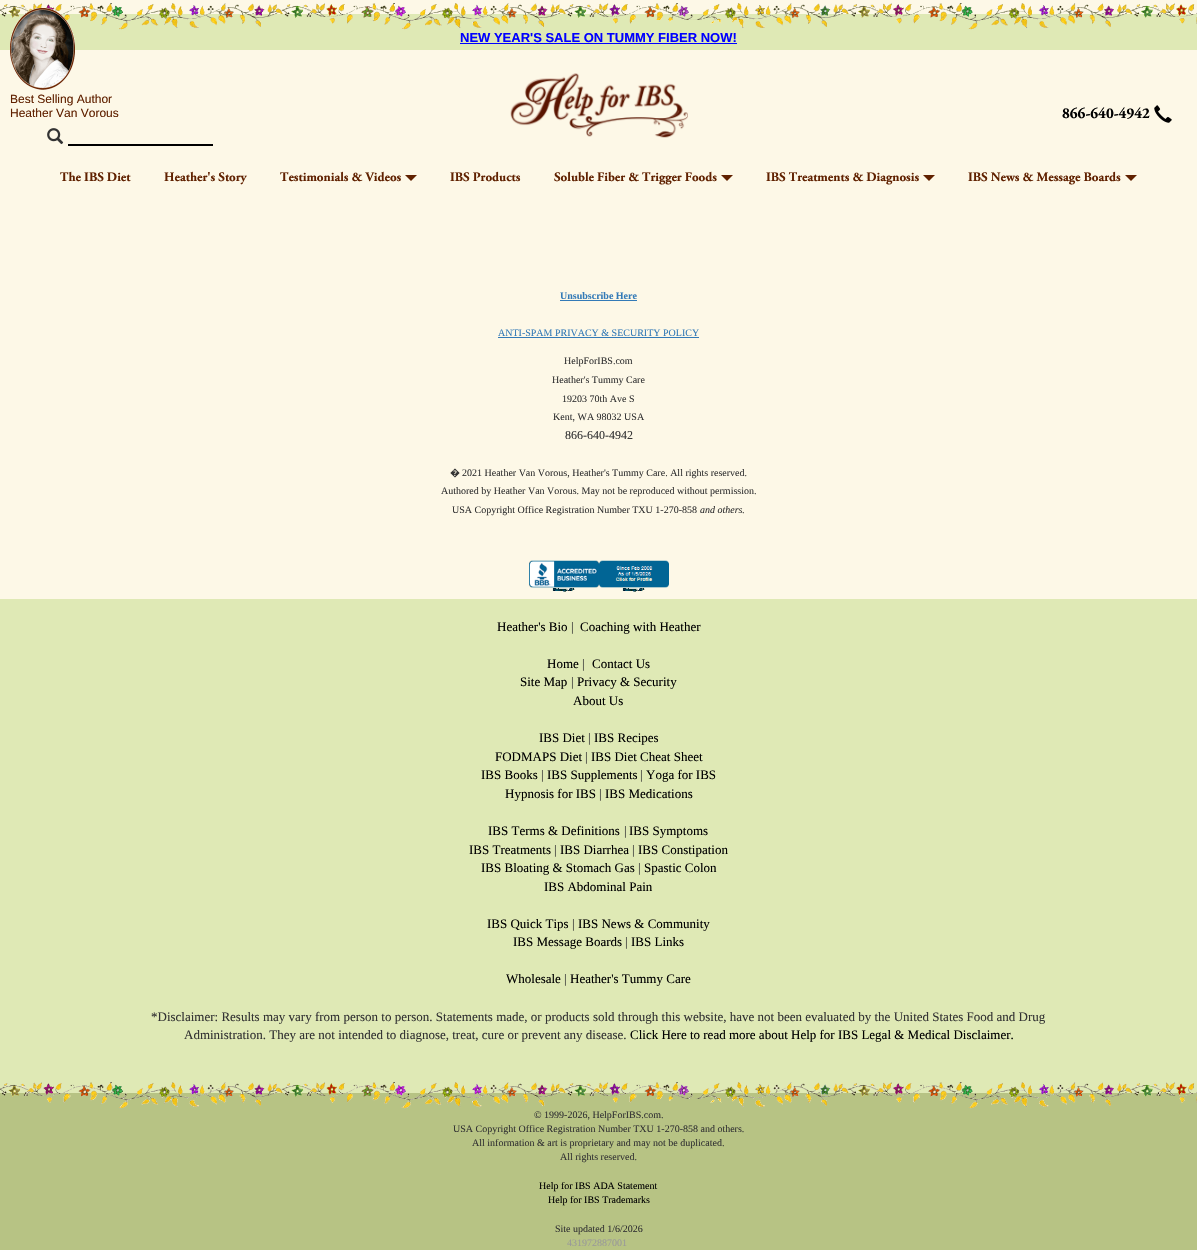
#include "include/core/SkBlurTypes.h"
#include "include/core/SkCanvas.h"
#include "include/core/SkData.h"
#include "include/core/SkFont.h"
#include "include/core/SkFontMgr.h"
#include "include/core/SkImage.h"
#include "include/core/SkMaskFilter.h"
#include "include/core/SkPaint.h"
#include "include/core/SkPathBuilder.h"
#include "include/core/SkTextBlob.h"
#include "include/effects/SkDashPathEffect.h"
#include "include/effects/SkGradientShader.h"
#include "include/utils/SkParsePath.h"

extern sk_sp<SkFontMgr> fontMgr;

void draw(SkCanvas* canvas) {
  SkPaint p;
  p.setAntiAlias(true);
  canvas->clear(SkColorSetRGB(253, 248, 231));
  p.setColor(SkColorSetRGB(223, 233, 181));
  canvas->drawRect(SkRect::MakeLTRB(0, 14, 1197, 50), p);
  canvas->drawImageRect(SkImages::DeferredFromEncodedData(SkData::MakeFromFileName("images/1.png")), SkRect::MakeLTRB(0, 3, 1197, 30), SkSamplingOptions());
  p.setColor(SkColorSetRGB(0, 0, 255));
  canvas->drawRect(SkRect::MakeLTRB(460, 43, 737, 44), p);
  canvas->drawImageRect(SkImages::DeferredFromEncodedData(SkData::MakeFromFileName("images/2.png")), SkRect::MakeLTRB(10, 8, 75, 90), SkSamplingOptions());
  canvas->drawImageRect(SkImages::DeferredFromEncodedData(SkData::MakeFromFileName("images/3.png")), SkRect::MakeLTRB(510, 73, 688, 138), SkSamplingOptions());
  canvas->drawImageRect(SkImages::DeferredFromEncodedData(SkData::MakeFromFileName("images/4.png")), SkRect::MakeLTRB(1154, 105, 1172, 123), SkSamplingOptions());
  canvas->drawImageRect(SkImages::DeferredFromEncodedData(SkData::MakeFromFileName("images/5.png")), SkRect::MakeLTRB(47, 128, 64, 145), SkSamplingOptions());
  p.setColor(SK_ColorBLACK);
  canvas->drawRect(SkRect::MakeLTRB(68, 144, 213, 146), p);
  p.setColor(SkColorSetRGB(96, 33, 0));
  canvas->drawPath(SkPathBuilder().moveTo(405, 175).lineTo(417, 175).lineTo(411, 181).close().detach(), p);
  canvas->drawPath(SkPathBuilder().moveTo(721, 175).lineTo(733, 175).lineTo(727, 181).close().detach(), p);
  canvas->drawPath(SkPathBuilder().moveTo(923, 175).lineTo(935, 175).lineTo(929, 181).close().detach(), p);
  canvas->drawPath(SkPathBuilder().moveTo(1125, 175).lineTo(1137, 175).lineTo(1131, 181).close().detach(), p);
  p.setColor(SkColorSetRGB(51, 122, 183));
  canvas->drawRect(SkRect::MakeLTRB(560, 300, 637, 301), p);
  canvas->drawRect(SkRect::MakeLTRB(498, 337, 699, 338), p);
  canvas->drawImageRect(SkImages::DeferredFromEncodedData(SkData::MakeFromFileName("images/6.png")), SkRect::MakeLTRB(529, 560, 669, 592), SkSamplingOptions());
  p.setColor(SkColorSetRGB(223, 233, 181));
  canvas->drawRect(SkRect::MakeLTRB(0, 599, 1197, 1093), p);
  p.setColor(SkColorSetRGB(183, 195, 132));
  canvas->drawRect(SkRect::MakeLTRB(0, 1093, 1197, 1250), p);
  canvas->drawImageRect(SkImages::DeferredFromEncodedData(SkData::MakeFromFileName("images/7.png")), SkRect::MakeLTRB(0, 1082, 1197, 1109), SkSamplingOptions());
  SkFont font1(fontMgr->matchFamilyStyle("Liberation Sans", SkFontStyle::Bold()), 13);
  font1.setSubpixel(true);
  p.setColor(SkColorSetRGB(0, 0, 255));
  canvas->drawString("NEW YEAR'S SALE ON TUMMY FIBER NOW!", 460, 42, font1, p);
  SkFont font2(fontMgr->matchFamilyStyle("Liberation Sans", SkFontStyle::Normal()), 12);
  font2.setSubpixel(true);
  p.setColor(SkColorSetRGB(96, 33, 0));
  canvas->drawString("Best Selling Author", 10, 103, font2, p);
  canvas->drawString("Heather Van Vorous", 10, 117, font2, p);
  SkFont font3(fontMgr->matchFamilyStyle("Adobe Garamond", SkFontStyle::Bold()), 15);
  font3.setSubpixel(true);
  p.setColor(SK_ColorBLACK);
  canvas->drawString("866-640-4942", 1062, 118, font3, p);
  SkFont font4(fontMgr->matchFamilyStyle("Adobe Garamond", SkFontStyle::Bold()), 13);
  font4.setSubpixel(true);
  p.setColor(SkColorSetRGB(96, 33, 0));
  canvas->drawString("The IBS Diet", 60, 181, font4, p);
  canvas->drawString("Heather's Story", 164, 181, font4, p);
  canvas->drawString("Testimonials & Videos", 280, 181, font4, p);
  canvas->drawString("IBS Products", 450, 181, font4, p);
  canvas->drawString("Soluble Fiber & Trigger Foods", 554, 181, font4, p);
  canvas->drawString("IBS Treatments & Diagnosis", 766, 181, font4, p);
  canvas->drawString("IBS News & Message Boards", 968, 181, font4, p);
  SkFont font5(fontMgr->matchFamilyStyle("Liberation Serif", SkFontStyle::Bold()), 10);
  font5.setSubpixel(true);
  p.setColor(SkColorSetRGB(51, 122, 183));
  canvas->drawString("Unsubscribe Here", 560, 299, font5, p);
  SkFont font6(fontMgr->matchFamilyStyle("Liberation Serif", SkFontStyle::Normal()), 10);
  font6.setSubpixel(true);
  canvas->drawString("ANTI-SPAM PRIVACY & SECURITY POLICY", 498, 336, font6, p);
  p.setColor(SkColorSetRGB(51, 51, 51));
  canvas->drawString("HelpForIBS.com", 564, 364, font6, p);
  canvas->drawString("Heather's Tummy Care", 552, 383, font6, p);
  canvas->drawString("19203 70th Ave S", 562, 402, font6, p);
  canvas->drawString("Kent, WA 98032 USA", 553, 420, font6, p);
  SkFont font7(fontMgr->matchFamilyStyle("Liberation Serif", SkFontStyle::Normal()), 12);
  font7.setSubpixel(true);
  canvas->drawString("866-640-4942", 565, 439, font7, p);
  SkFont font8(fontMgr->matchFamilyStyle("Noto Sans", SkFontStyle::Normal()), 10);
  font8.setSubpixel(true);
  canvas->drawString("�", 450, 476, font8, p);
  canvas->drawString("2021 Heather Van Vorous, Heather's Tummy Care. All rights reserved.", 462, 476, font6, p);
  canvas->drawString("Authored by Heather Van Vorous. May not be reproduced without permission.", 441, 494, font6, p);
  canvas->drawString("USA Copyright Office Registration Number TXU 1-270-858", 452, 513, font6, p);
  SkFont font9(fontMgr->matchFamilyStyle("Liberation Serif", SkFontStyle::Italic()), 10);
  font9.setSubpixel(true);
  canvas->drawString("and others", 700, 513, font9, p);
  canvas->drawString(".", 742, 513, font6, p);
  SkFont font10(fontMgr->matchFamilyStyle("Liberation Serif", SkFontStyle::Normal()), 13);
  font10.setSubpixel(true);
  p.setColor(SK_ColorBLACK);
  canvas->drawString("Heather's Bio", 497, 631, font10, p);
  p.setColor(SkColorSetRGB(51, 51, 51));
  canvas->drawString("|", 571, 631, font10, p);
  p.setColor(SK_ColorBLACK);
  canvas->drawString("Coaching with Heather", 580, 631, font10, p);
  canvas->drawString("Home", 547, 668, font10, p);
  p.setColor(SkColorSetRGB(51, 51, 51));
  canvas->drawString("|", 582, 668, font10, p);
  p.setColor(SK_ColorBLACK);
  canvas->drawString("Contact Us", 592, 668, font10, p);
  canvas->drawString("Site Map", 520, 686, font10, p);
  p.setColor(SkColorSetRGB(51, 51, 51));
  canvas->drawString("|", 571, 686, font10, p);
  p.setColor(SK_ColorBLACK);
  canvas->drawString("Privacy & Security", 577, 686, font10, p);
  canvas->drawString("About Us", 573, 705, font10, p);
  canvas->drawString("IBS Diet", 539, 742, font10, p);
  p.setColor(SkColorSetRGB(51, 51, 51));
  canvas->drawString("|", 588, 742, font10, p);
  p.setColor(SK_ColorBLACK);
  canvas->drawString("IBS Recipes", 594, 742, font10, p);
  canvas->drawString("FODMAPS Diet", 495, 761, font10, p);
  p.setColor(SkColorSetRGB(51, 51, 51));
  canvas->drawString("|", 585, 761, font10, p);
  p.setColor(SK_ColorBLACK);
  canvas->drawString("IBS Diet Cheat Sheet", 591, 761, font10, p);
  canvas->drawString("IBS Books", 481, 779, font10, p);
  p.setColor(SkColorSetRGB(51, 51, 51));
  canvas->drawString("|", 541, 779, font10, p);
  p.setColor(SK_ColorBLACK);
  canvas->drawString("IBS Supplements", 547, 779, font10, p);
  p.setColor(SkColorSetRGB(51, 51, 51));
  canvas->drawString("|", 640, 779, font10, p);
  p.setColor(SK_ColorBLACK);
  canvas->drawString("Yoga for IBS", 646, 779, font10, p);
  canvas->drawString("Hypnosis for IBS", 505, 798, font10, p);
  p.setColor(SkColorSetRGB(51, 51, 51));
  canvas->drawString("|", 599, 798, font10, p);
  p.setColor(SK_ColorBLACK);
  canvas->drawString("IBS Medications", 605, 798, font10, p);
  canvas->drawString("IBS Terms & Definitions", 488, 835, font10, p);
  p.setColor(SkColorSetRGB(51, 51, 51));
  canvas->drawString("|", 624, 835, font10, p);
  p.setColor(SK_ColorBLACK);
  canvas->drawString("IBS Symptoms", 629, 835, font10, p);
  canvas->drawString("IBS Treatments", 469, 854, font10, p);
  p.setColor(SkColorSetRGB(51, 51, 51));
  canvas->drawString("|", 554, 854, font10, p);
  p.setColor(SK_ColorBLACK);
  canvas->drawString("IBS Diarrhea", 560, 854, font10, p);
  p.setColor(SkColorSetRGB(51, 51, 51));
  canvas->drawString("|", 632, 854, font10, p);
  p.setColor(SK_ColorBLACK);
  canvas->drawString("IBS Constipation", 638, 854, font10, p);
  canvas->drawString("IBS Bloating & Stomach Gas", 481, 872, font10, p);
  p.setColor(SkColorSetRGB(51, 51, 51));
  canvas->drawString("|", 638, 872, font10, p);
  p.setColor(SK_ColorBLACK);
  canvas->drawString("Spastic Colon", 644, 872, font10, p);
  canvas->drawString("IBS Abdominal Pain", 544, 891, font10, p);
  canvas->drawString("IBS Quick Tips", 487, 928, font10, p);
  p.setColor(SkColorSetRGB(51, 51, 51));
  canvas->drawString("|", 572, 928, font10, p);
  p.setColor(SK_ColorBLACK);
  canvas->drawString("IBS News & Community", 578, 928, font10, p);
  canvas->drawString("IBS Message Boards", 513, 946, font10, p);
  p.setColor(SkColorSetRGB(51, 51, 51));
  canvas->drawString("|", 625, 946, font10, p);
  p.setColor(SK_ColorBLACK);
  canvas->drawString("IBS Links", 631, 946, font10, p);
  canvas->drawString("Wholesale", 506, 983, font10, p);
  p.setColor(SkColorSetRGB(51, 51, 51));
  canvas->drawString("|", 564, 983, font10, p);
  p.setColor(SK_ColorBLACK);
  canvas->drawString("Heather's Tummy Care", 570, 983, font10, p);
  p.setColor(SkColorSetRGB(51, 51, 51));
  canvas->drawString("*Disclaimer: Results may vary from person to person. Statements made, or products sold through this website, have not been evaluated by the United States Food and Drug", 151, 1021, font10, p);
  canvas->drawString("Administration. They are not intended to diagnose, treat, cure or prevent any disease.", 184, 1039, font10, p);
  p.setColor(SK_ColorBLACK);
  canvas->drawString("Click Here to read more about Help for IBS Legal & Medical Disclaimer.", 630, 1039, font10, p);
  p.setColor(SkColorSetRGB(51, 51, 51));
  canvas->drawString("© 1999-2026, HelpForIBS.com.", 534, 1118, font6, p);
  canvas->drawString("USA Copyright Office Registration Number TXU 1-270-858 and others.", 453, 1132, font6, p);
  canvas->drawString("All information & art is proprietary and may not be duplicated.", 472, 1146, font6, p);
  canvas->drawString("All rights reserved.", 560, 1160, font6, p);
  p.setColor(SK_ColorBLACK);
  canvas->drawString("Help for IBS ADA Statement", 539, 1189, font6, p);
  canvas->drawString("Help for IBS Trademarks", 548, 1203, font6, p);
  p.setColor(SkColorSetRGB(51, 51, 51));
  canvas->drawString("Site updated 1/6/2026", 555, 1232, font6, p);
  p.setColor(SkColorSetRGB(153, 153, 153));
  canvas->drawString("431972887001", 567, 1246, font6, p);
}
